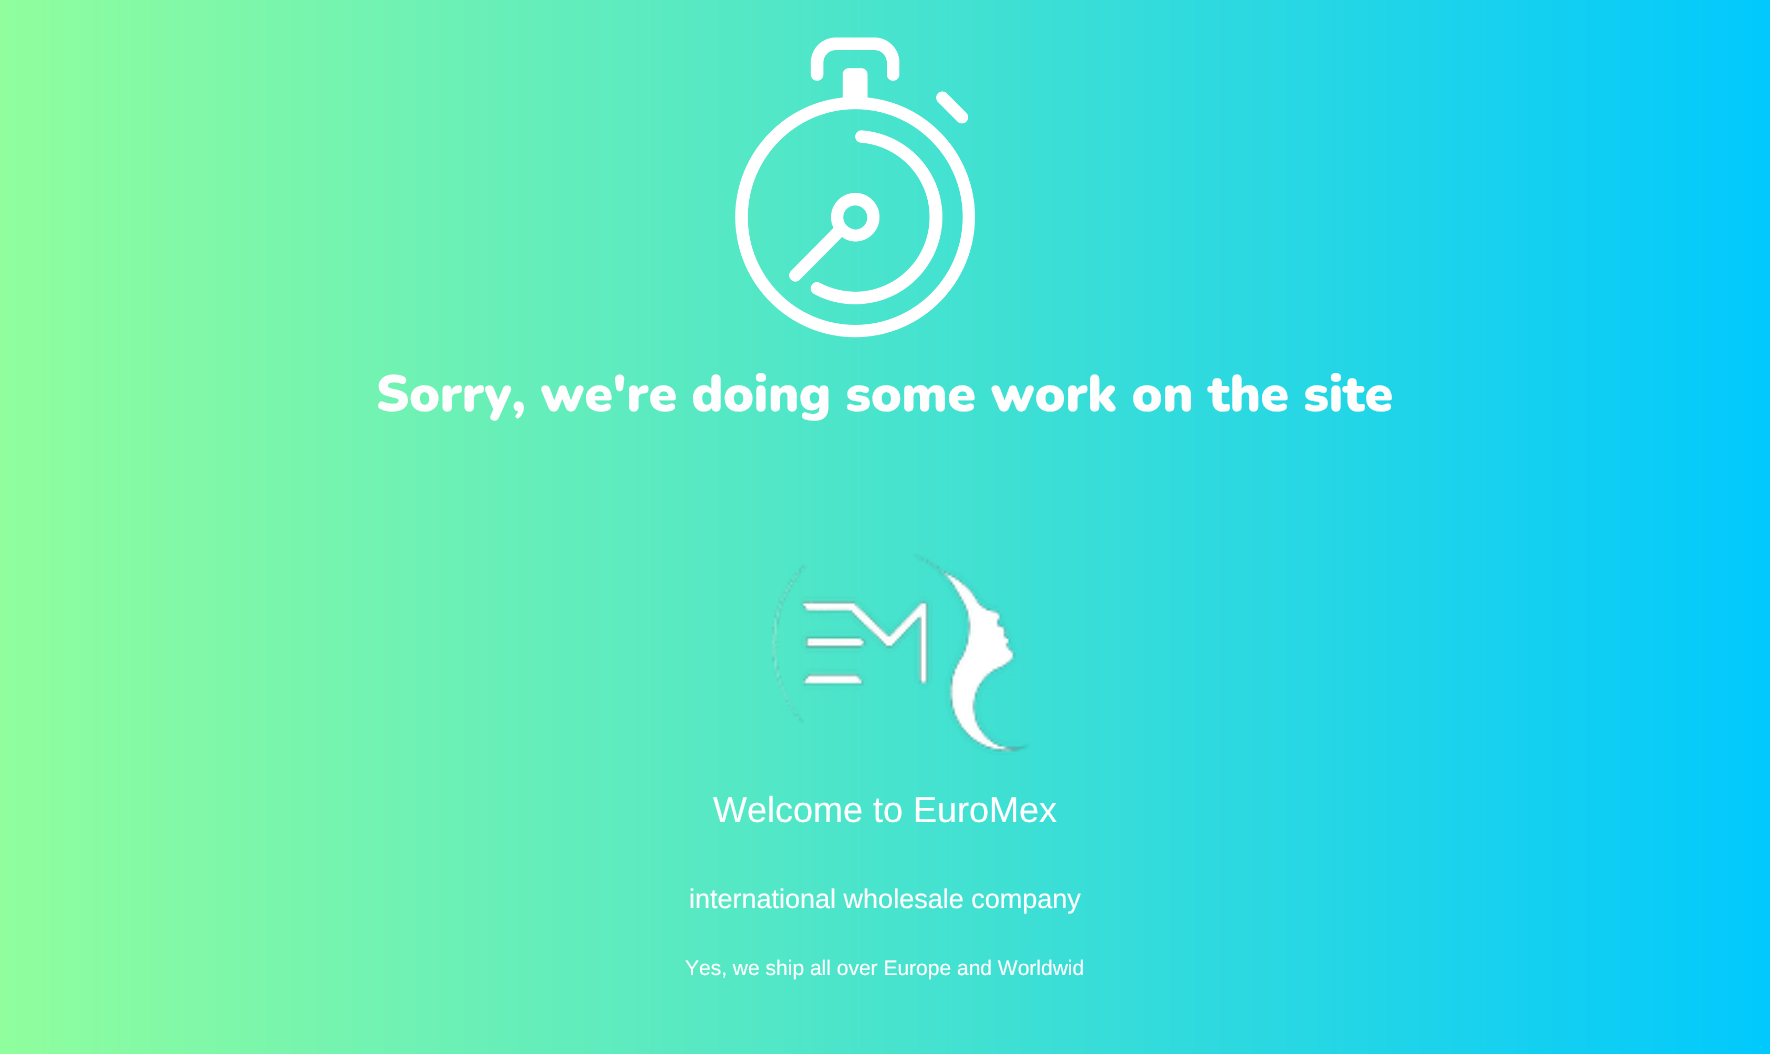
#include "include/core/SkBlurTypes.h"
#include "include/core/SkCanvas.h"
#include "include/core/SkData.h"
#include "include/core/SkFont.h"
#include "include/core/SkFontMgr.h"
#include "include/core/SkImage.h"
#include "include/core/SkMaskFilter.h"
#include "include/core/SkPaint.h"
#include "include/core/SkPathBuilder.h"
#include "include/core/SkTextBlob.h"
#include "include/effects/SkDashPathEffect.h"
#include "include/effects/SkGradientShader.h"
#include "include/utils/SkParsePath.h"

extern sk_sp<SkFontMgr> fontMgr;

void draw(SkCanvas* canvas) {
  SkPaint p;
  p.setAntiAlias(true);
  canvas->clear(SK_ColorWHITE);
  {
    const SkColor colors[] = {SkColorSetRGB(144, 254, 157), SkColorSetRGB(1, 201, 253)};
    const float stops[] = {0, 1};
    const SkPoint ends[] = {{0, 527}, {1770, 527}};
    p.setShader(SkGradientShader::MakeLinear(ends, colors, stops, 2, SkTileMode::kClamp));
    p.setAlpha(255);
  }
  canvas->drawRect(SkRect::MakeLTRB(0, 0, 1770, 1054), p);
  canvas->drawImageRect(SkImages::DeferredFromEncodedData(SkData::MakeFromFileName("images/1.png")), SkRect::MakeLTRB(735, 37, 975, 338), SkSamplingOptions());
  canvas->drawImageRect(SkImages::DeferredFromEncodedData(SkData::MakeFromFileName("images/2.png")), SkRect::MakeLTRB(789, 193, 880, 282), SkSamplingOptions());
  canvas->drawImageRect(SkImages::DeferredFromEncodedData(SkData::MakeFromFileName("images/3.png")), SkRect::MakeLTRB(771, 554, 1030, 755), SkSamplingOptions());
  SkFont font1(fontMgr->matchFamilyStyle("Nunito", SkFontStyle(200, SkFontStyle::kNormal_Width, SkFontStyle::kUpright_Slant)), 51);
  font1.setSubpixel(true);
  p.setShader(nullptr);
  p.setColor(SkColorSetRGB(254, 254, 254));
  canvas->drawString("Sorry, we're doing some work on the site", 376, 411, font1, p);
  SkFont font2(fontMgr->matchFamilyStyle("Liberation Sans", SkFontStyle::Normal()), 36);
  font2.setSubpixel(true);
  canvas->drawString("Welcome to EuroMex", 713, 822, font2, p);
  SkFont font3(fontMgr->matchFamilyStyle("Liberation Sans", SkFontStyle::Normal()), 27);
  font3.setSubpixel(true);
  canvas->drawString("international wholesale company", 689, 908, font3, p);
  SkFont font4(fontMgr->matchFamilyStyle("Liberation Sans", SkFontStyle::Normal()), 21);
  font4.setSubpixel(true);
  canvas->drawString("Yes, we ship all over Europe and Worldwid", 685, 975, font4, p);
}
